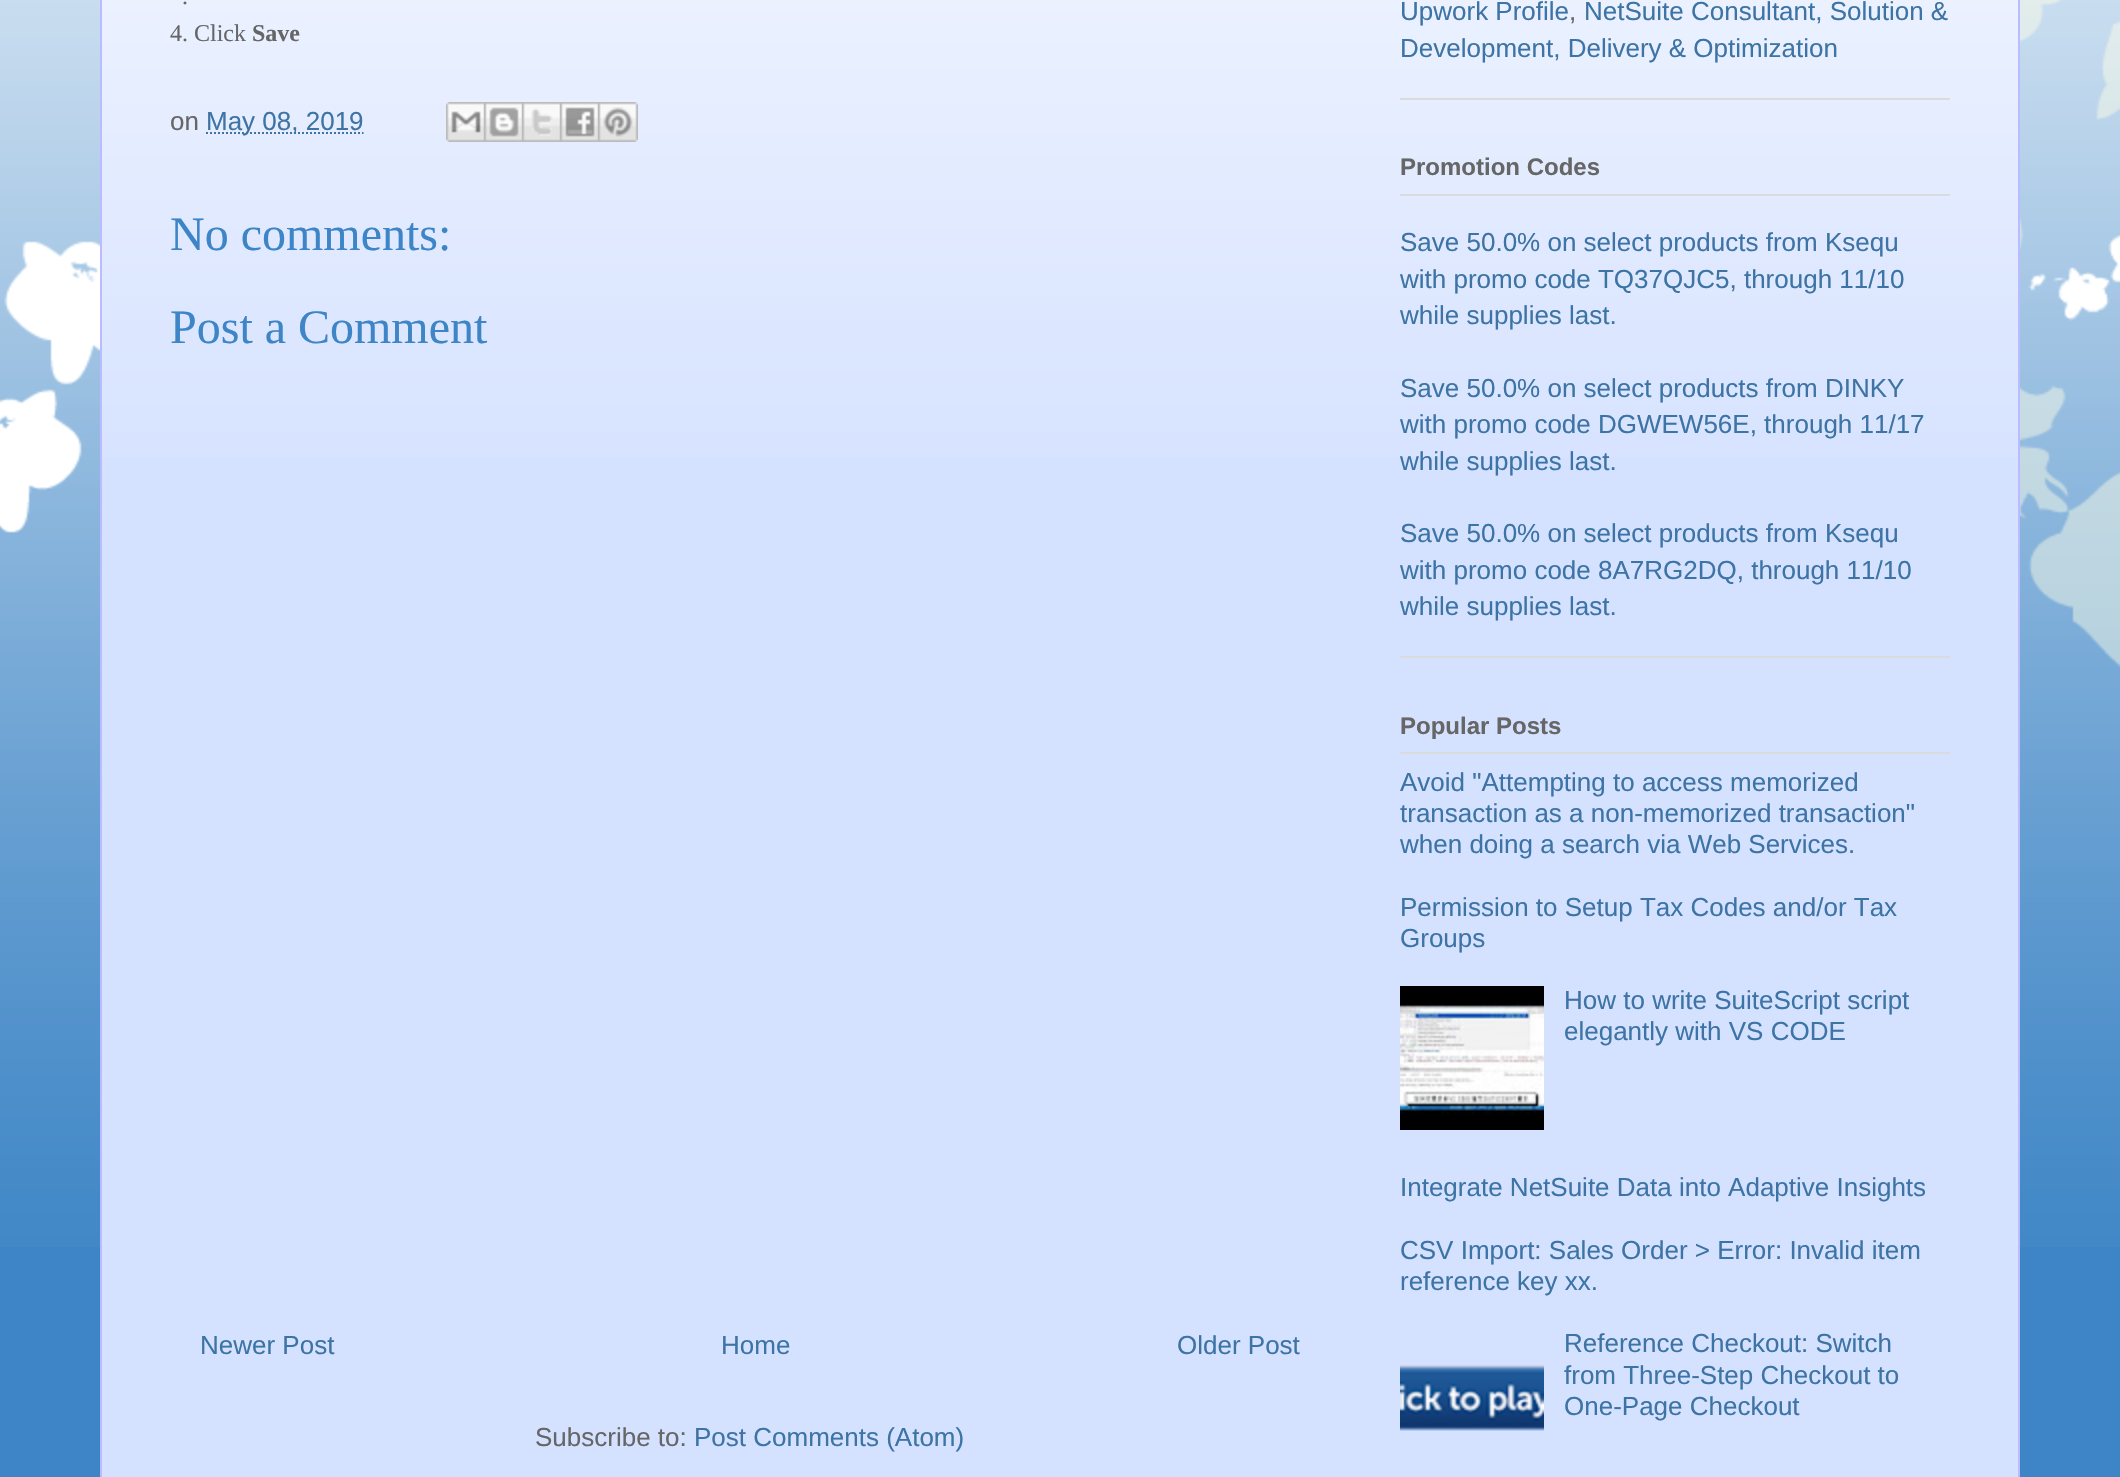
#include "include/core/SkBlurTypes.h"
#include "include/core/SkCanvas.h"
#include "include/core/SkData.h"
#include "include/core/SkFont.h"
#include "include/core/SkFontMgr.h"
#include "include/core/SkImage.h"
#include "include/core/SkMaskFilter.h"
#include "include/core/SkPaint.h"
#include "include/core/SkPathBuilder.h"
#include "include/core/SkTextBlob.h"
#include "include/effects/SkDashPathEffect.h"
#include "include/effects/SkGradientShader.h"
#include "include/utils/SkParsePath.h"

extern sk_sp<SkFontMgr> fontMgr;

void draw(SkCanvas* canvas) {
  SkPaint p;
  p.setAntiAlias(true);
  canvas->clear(SkColorSetRGB(61, 133, 198));
  canvas->drawImageRect(SkImages::DeferredFromEncodedData(SkData::MakeFromFileName("images/1.png")), SkRect::MakeLTRB(0, 0, 2120, 1247), SkSamplingOptions());
  p.setColor(SkColorSetRGB(212, 225, 255));
  canvas->drawRect(SkRect::MakeLTRB(102, 0, 2018, 1477), p);
  canvas->drawImageRect(SkImages::DeferredFromEncodedData(SkData::MakeFromFileName("images/2.png")), SkRect::MakeLTRB(102, 0, 2018, 457), SkSamplingOptions());
  p.setColor(SkColorSetRGB(187, 187, 255));
  canvas->drawRect(SkRect::MakeLTRB(2018, 0, 2020, 1477), p);
  canvas->drawRect(SkRect::MakeLTRB(100, 0, 102, 1477), p);
  p.setStyle(SkPaint::kStroke_Style);
  p.setStrokeWidth(2);
  p.setColor(SkColorSetRGB(61, 116, 165));
  p.setPathEffect(SkDashPathEffect::Make({{2, 2}}, 0));
  canvas->drawPath(SkPathBuilder().moveTo(206, 133).lineTo(363.5f, 133).detach(), p);
  p.setPathEffect(nullptr);
  canvas->drawImageRect(SkImages::DeferredFromEncodedData(SkData::MakeFromFileName("images/3.png")), SkRect::MakeLTRB(446, 102, 484, 142), SkSamplingOptions());
  canvas->drawImageRect(SkImages::DeferredFromEncodedData(SkData::MakeFromFileName("images/4.png")), SkRect::MakeLTRB(484, 102, 522, 142), SkSamplingOptions());
  canvas->drawImageRect(SkImages::DeferredFromEncodedData(SkData::MakeFromFileName("images/5.png")), SkRect::MakeLTRB(522, 102, 560, 142), SkSamplingOptions());
  canvas->drawImageRect(SkImages::DeferredFromEncodedData(SkData::MakeFromFileName("images/6.png")), SkRect::MakeLTRB(560, 102, 598, 142), SkSamplingOptions());
  canvas->drawImageRect(SkImages::DeferredFromEncodedData(SkData::MakeFromFileName("images/7.png")), SkRect::MakeLTRB(598, 102, 638, 142), SkSamplingOptions());
  p.setStyle(SkPaint::kFill_Style);
  p.setColor(SkColorSetRGB(219, 219, 219));
  canvas->drawRect(SkRect::MakeLTRB(1400, 98, 1950, 100), p);
  canvas->drawRect(SkRect::MakeLTRB(1400, 656, 1950, 658), p);
  canvas->drawRect(SkRect::MakeLTRB(1400, 194, 1950, 196), p);
  canvas->drawRect(SkRect::MakeLTRB(1400, 752, 1950, 754), p);
  canvas->drawImageRect(SkImages::DeferredFromEncodedData(SkData::MakeFromFileName("images/8.png")), SkRect::MakeLTRB(1400, 986, 1544, 1130), SkSamplingOptions());
  canvas->drawImageRect(SkImages::DeferredFromEncodedData(SkData::MakeFromFileName("images/9.png")), SkRect::MakeLTRB(1400, 1365, 1544, 1431), SkSamplingOptions());
  SkFont font1(fontMgr->matchFamilyStyle("Liberation Serif", SkFontStyle::Normal()), 24);
  font1.setSubpixel(true);
  p.setColor(SkColorSetRGB(102, 102, 102));
  canvas->drawString(".", 182, 4, font1, p);
  canvas->drawString("4. Click", 170, 41, font1, p);
  SkFont font2(fontMgr->matchFamilyStyle("Liberation Serif", SkFontStyle::Bold()), 24);
  font2.setSubpixel(true);
  canvas->drawString("Save", 252, 41, font2, p);
  SkFont font3(fontMgr->matchFamilyStyle("Liberation Sans", SkFontStyle::Normal()), 26);
  font3.setSubpixel(true);
  canvas->drawString("on", 170, 130, font3, p);
  p.setColor(SkColorSetRGB(61, 116, 165));
  canvas->drawString("May 08, 2019", 206, 130, font3, p);
  SkFont font4(fontMgr->matchFamilyStyle("Liberation Serif", SkFontStyle::Normal()), 48);
  font4.setSubpixel(true);
  p.setColor(SkColorSetRGB(61, 133, 198));
  canvas->drawString("No comments:", 170, 250, font4, p);
  canvas->drawString("Post a Comment", 170, 343, font4, p);
  p.setColor(SkColorSetRGB(61, 116, 165));
  canvas->drawString("Newer Post", 200, 1354, font3, p);
  canvas->drawString("Home", 721, 1354, font3, p);
  canvas->drawString("Older Post", 1177, 1354, font3, p);
  p.setColor(SkColorSetRGB(102, 102, 102));
  canvas->drawString("Subscribe to:", 535, 1446, font3, p);
  p.setColor(SkColorSetRGB(61, 116, 165));
  canvas->drawString("Post Comments (Atom)", 694, 1446, font3, p);
  canvas->drawString("Upwork Profile", 1400, 20, font3, p);
  p.setColor(SkColorSetRGB(102, 102, 102));
  canvas->drawString(",", 1569, 20, font3, p);
  p.setColor(SkColorSetRGB(61, 116, 165));
  canvas->drawString("NetSuite Consultant, Solution &", 1584, 20, font3, p);
  canvas->drawString("Development, Delivery & Optimization", 1400, 57, font3, p);
  SkFont font5(fontMgr->matchFamilyStyle("Liberation Sans", SkFontStyle::Bold()), 24);
  font5.setSubpixel(true);
  p.setColor(SkColorSetRGB(102, 102, 102));
  canvas->drawString("Promotion Codes", 1400, 175, font5, p);
  p.setColor(SkColorSetRGB(61, 116, 165));
  canvas->drawString("Save 50.0% on select products from Ksequ", 1400, 251, font3, p);
  canvas->drawString("with promo code TQ37QJC5, through 11/10", 1400, 288, font3, p);
  canvas->drawString("while supplies last.", 1400, 324, font3, p);
  canvas->drawString("Save 50.0% on select products from DINKY", 1400, 397, font3, p);
  canvas->drawString("with promo code DGWEW56E, through 11/17", 1400, 433, font3, p);
  canvas->drawString("while supplies last.", 1400, 470, font3, p);
  canvas->drawString("Save 50.0% on select products from Ksequ", 1400, 542, font3, p);
  canvas->drawString("with promo code 8A7RG2DQ, through 11/10", 1400, 579, font3, p);
  canvas->drawString("while supplies last.", 1400, 615, font3, p);
  p.setColor(SkColorSetRGB(102, 102, 102));
  canvas->drawString("Popular Posts", 1400, 734, font5, p);
  p.setColor(SkColorSetRGB(61, 116, 165));
  canvas->drawString("Avoid \"Attempting to access memorized", 1400, 791, font3, p);
  canvas->drawString("transaction as a non-memorized transaction\"", 1400, 822, font3, p);
  canvas->drawString("when doing a search via Web Services.", 1400, 853, font3, p);
  canvas->drawString("Permission to Setup Tax Codes and/or Tax", 1400, 916, font3, p);
  canvas->drawString("Groups", 1400, 947, font3, p);
  canvas->drawString("How to write SuiteScript script", 1564, 1009, font3, p);
  canvas->drawString("elegantly with VS CODE", 1564, 1040, font3, p);
  canvas->drawString("Integrate NetSuite Data into Adaptive Insights", 1400, 1196, font3, p);
  canvas->drawString("CSV Import: Sales Order > Error: Invalid item", 1400, 1259, font3, p);
  canvas->drawString("reference key xx.", 1400, 1290, font3, p);
  canvas->drawString("Reference Checkout: Switch", 1564, 1352, font3, p);
  canvas->drawString("from Three-Step Checkout to", 1564, 1384, font3, p);
  canvas->drawString("One-Page Checkout", 1564, 1415, font3, p);
}
